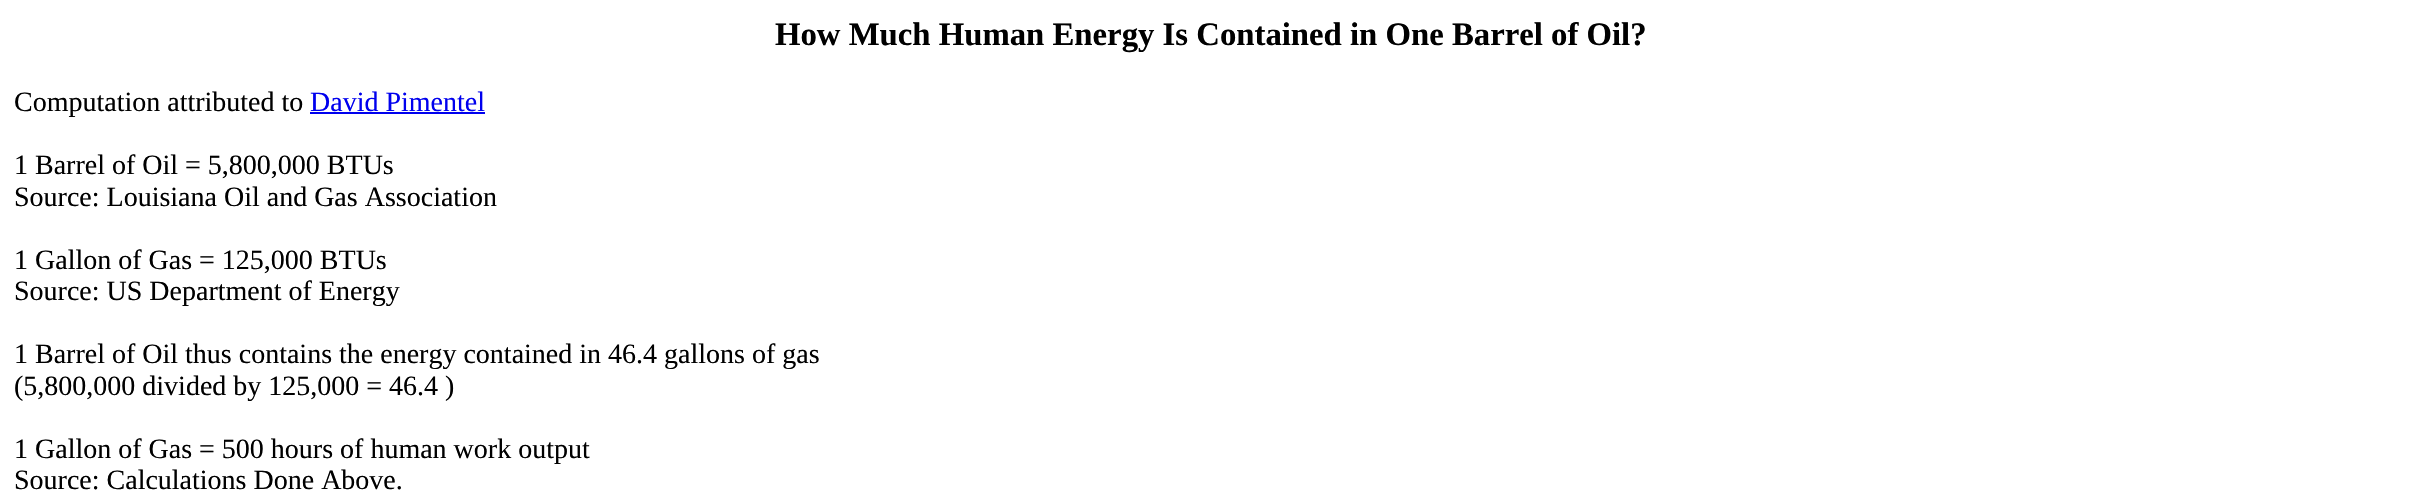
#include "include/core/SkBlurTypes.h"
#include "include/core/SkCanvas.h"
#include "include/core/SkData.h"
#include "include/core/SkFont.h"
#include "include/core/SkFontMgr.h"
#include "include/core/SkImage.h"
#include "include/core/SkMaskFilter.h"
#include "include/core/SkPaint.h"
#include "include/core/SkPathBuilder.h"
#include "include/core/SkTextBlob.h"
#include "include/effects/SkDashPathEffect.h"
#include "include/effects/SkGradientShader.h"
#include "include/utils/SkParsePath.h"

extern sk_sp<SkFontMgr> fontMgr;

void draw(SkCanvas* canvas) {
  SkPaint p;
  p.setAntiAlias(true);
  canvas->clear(SK_ColorWHITE);
  p.setColor(SkColorSetRGB(0, 0, 238));
  canvas->drawRect(SkRect::MakeLTRB(310, 112, 485, 114), p);
  SkFont font1(fontMgr->matchFamilyStyle("Liberation Serif", SkFontStyle::Bold()), 32.75f);
  font1.setSubpixel(true);
  p.setColor(SK_ColorBLACK);
  canvas->drawString("How Much Human Energy Is Contained in One Barrel of Oil?", 775, 45, font1, p);
  SkFont font2(fontMgr->matchFamilyStyle("Liberation Serif", SkFontStyle::Normal()), 28);
  font2.setSubpixel(true);
  canvas->drawString("Computation attributed to", 14, 111, font2, p);
  p.setColor(SkColorSetRGB(0, 0, 238));
  canvas->drawString("David Pimentel", 310, 111, font2, p);
  p.setColor(SK_ColorBLACK);
  canvas->drawString("1 Barrel of Oil = 5,800,000 BTUs", 14, 174, font2, p);
  canvas->drawString("Source: Louisiana Oil and Gas Association", 14, 206, font2, p);
  canvas->drawString("1 Gallon of Gas = 125,000 BTUs", 14, 269, font2, p);
  canvas->drawString("Source: US Department of Energy", 14, 300, font2, p);
  canvas->drawString("1 Barrel of Oil thus contains the energy contained in 46.4 gallons of gas", 14, 363, font2, p);
  canvas->drawString("(5,800,000 divided by 125,000 = 46.4 )", 14, 395, font2, p);
  canvas->drawString("1 Gallon of Gas = 500 hours of human work output", 14, 458, font2, p);
  canvas->drawString("Source: Calculations Done Above.", 14, 489, font2, p);
}
